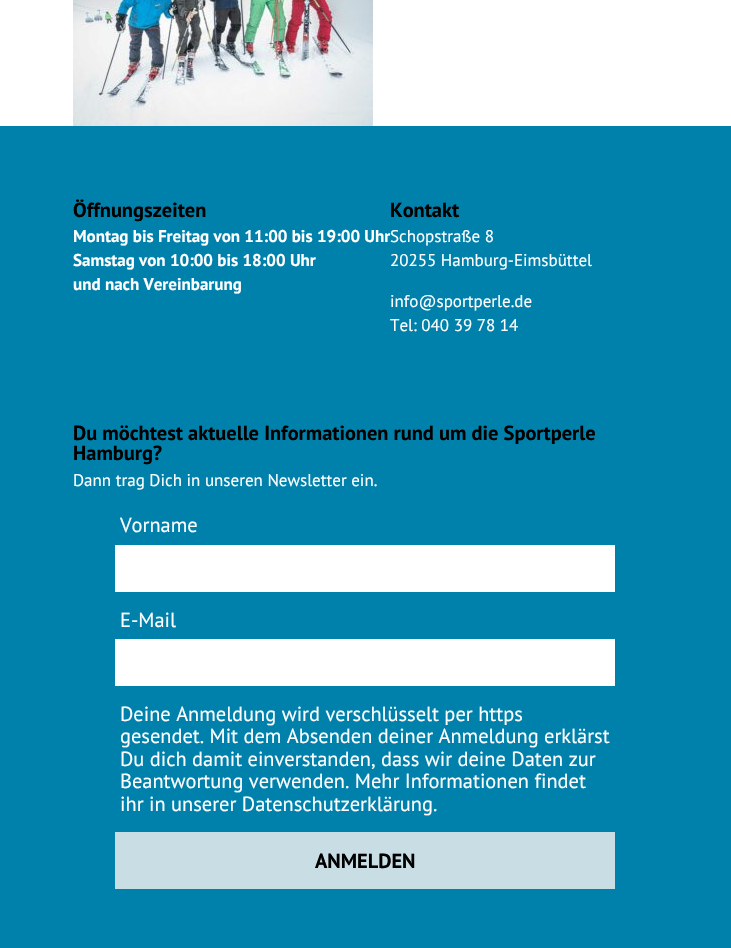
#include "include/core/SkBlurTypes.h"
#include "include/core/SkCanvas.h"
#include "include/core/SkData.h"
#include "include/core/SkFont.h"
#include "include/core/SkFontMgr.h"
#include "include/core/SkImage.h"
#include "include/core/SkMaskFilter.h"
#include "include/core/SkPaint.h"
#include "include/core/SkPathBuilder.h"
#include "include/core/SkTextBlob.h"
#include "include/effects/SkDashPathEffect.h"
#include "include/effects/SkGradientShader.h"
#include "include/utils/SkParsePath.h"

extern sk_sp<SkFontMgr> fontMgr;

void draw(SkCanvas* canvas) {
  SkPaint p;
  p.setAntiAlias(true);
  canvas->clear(SK_ColorWHITE);
  canvas->drawImageRect(SkImages::DeferredFromEncodedData(SkData::MakeFromFileName("images/1.png")), SkRect::MakeLTRB(73, 0, 373, 126), SkSamplingOptions());
  p.setColor(SkColorSetRGB(0, 129, 172));
  canvas->drawRect(SkRect::MakeLTRB(0, 126, 731, 948), p);
  p.setColor(SK_ColorWHITE);
  canvas->drawRect(SkRect::MakeLTRB(115, 545, 615, 592), p);
  canvas->drawRect(SkRect::MakeLTRB(115, 639, 615, 686), p);
  p.setColor(SkColorSetRGB(201, 221, 228));
  canvas->drawRect(SkRect::MakeLTRB(115, 832, 615, 889), p);
  SkFont font1(fontMgr->matchFamilyStyle("PT Sans", SkFontStyle::Bold()), 20.4f);
  font1.setSubpixel(true);
  p.setColor(SK_ColorBLACK);
  canvas->drawString("Öffnungszeiten", 73, 217, font1, p);
  SkFont font2(fontMgr->matchFamilyStyle("PT Sans", SkFontStyle::Bold()), 17);
  font2.setSubpixel(true);
  p.setColor(SK_ColorWHITE);
  canvas->drawString("Montag bis Freitag von 11:00 bis 19:00 Uhr", 73, 242, font2, p);
  canvas->drawString("Samstag von 10:00 bis 18:00 Uhr", 73, 266, font2, p);
  canvas->drawString("und nach Vereinbarung", 73, 290, font2, p);
  p.setColor(SK_ColorBLACK);
  canvas->drawString("Kontakt", 390, 217, font1, p);
  SkFont font3(fontMgr->matchFamilyStyle("PT Sans", SkFontStyle::Normal()), 17);
  font3.setSubpixel(true);
  p.setColor(SK_ColorWHITE);
  canvas->drawString("Schopstraße 8", 390, 242, font3, p);
  canvas->drawString("20255 Hamburg-Eimsbüttel", 390, 266, font3, p);
  canvas->drawString("info@sportperle.de", 390, 307, font3, p);
  canvas->drawString("Tel: 040 39 78 14", 390, 331, font3, p);
  p.setColor(SK_ColorBLACK);
  canvas->drawString("Du möchtest aktuelle Informationen rund um die Sportperle", 73, 440, font1, p);
  canvas->drawString("Hamburg?", 73, 460, font1, p);
  p.setColor(SK_ColorWHITE);
  canvas->drawString("Dann trag Dich in unseren Newsletter ein.", 73, 486, font3, p);
  SkFont font4(fontMgr->matchFamilyStyle("PT Sans", SkFontStyle::Normal()), 20.4f);
  font4.setSubpixel(true);
  canvas->drawString("Vorname", 120, 532, font4, p);
  canvas->drawString("E-Mail", 120, 627, font4, p);
  canvas->drawString("Deine Anmeldung wird verschlüsselt per https", 120, 721, font4, p);
  canvas->drawString("gesendet. Mit dem Absenden deiner Anmeldung erklärst", 120, 743, font4, p);
  canvas->drawString("Du dich damit einverstanden, dass wir deine Daten zur", 120, 766, font4, p);
  canvas->drawString("Beantwortung verwenden. Mehr Informationen findet", 120, 788, font4, p);
  canvas->drawString("ihr in unserer Datenschutzerklärung.", 120, 811, font4, p);
  p.setColor(SK_ColorBLACK);
  canvas->drawString("ANMELDEN", 315, 868, font1, p);
}
